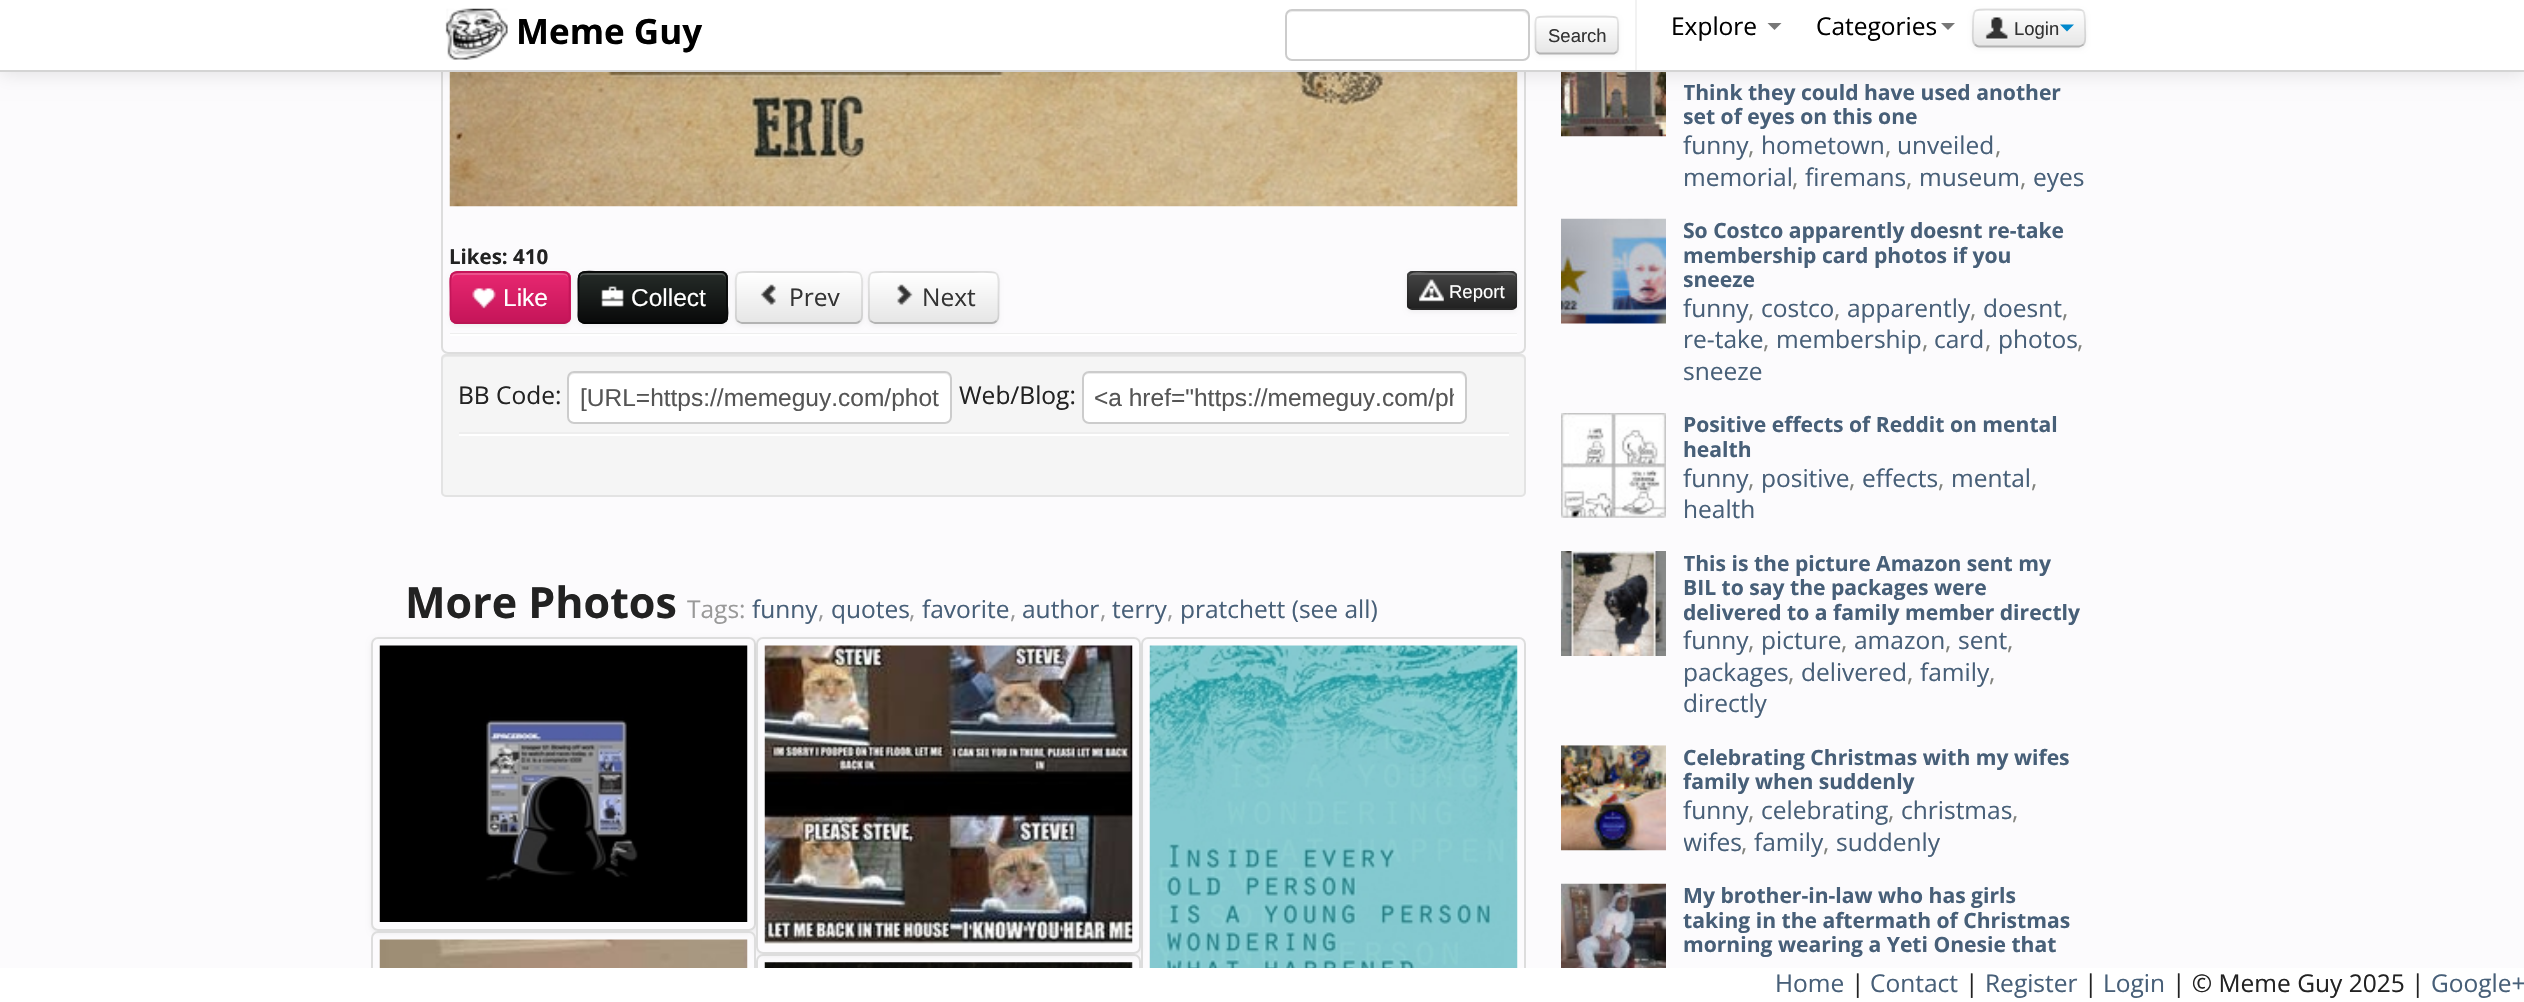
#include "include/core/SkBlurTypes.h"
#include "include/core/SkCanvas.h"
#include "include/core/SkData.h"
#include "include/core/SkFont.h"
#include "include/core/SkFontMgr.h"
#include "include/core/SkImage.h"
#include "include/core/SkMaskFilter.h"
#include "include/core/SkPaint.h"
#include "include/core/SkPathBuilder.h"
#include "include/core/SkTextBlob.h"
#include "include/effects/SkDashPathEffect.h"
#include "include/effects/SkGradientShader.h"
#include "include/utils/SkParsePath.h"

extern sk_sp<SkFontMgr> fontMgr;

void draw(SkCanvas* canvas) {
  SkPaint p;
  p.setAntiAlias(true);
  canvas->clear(SkColorSetRGB(252, 251, 253));
  p.setStyle(SkPaint::kStroke_Style);
  p.setStrokeWidth(2);
  p.setColor(SkColorSetRGB(221, 221, 221));
  canvas->drawRoundRect(SkRect::MakeLTRB(442, -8, 1525, 353), 6, 6, p);
  canvas->drawImageRect(SkImages::DeferredFromEncodedData(SkData::MakeFromFileName("images/3.png")), SkRect::MakeLTRB(449, 72, 1518, 207), SkSamplingOptions());
  canvas->drawImageRect(SkImages::DeferredFromEncodedData(SkData::MakeFromFileName("images/14.png")), SkRect::MakeLTRB(1561, 72, 1666, 137), SkSamplingOptions());
  p.setStyle(SkPaint::kFill_Style);
  p.setColor(SkColorSetARGB(26, 0, 0, 0));
  p.setMaskFilter(SkMaskFilter::MakeBlur(kNormal_SkBlurStyle, 9));
  canvas->drawRect(SkRect::MakeLTRB(0, 2, 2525, 74), p);
  p.setMaskFilter(nullptr);
  p.setColor(SK_ColorWHITE);
  canvas->drawRect(SkRect::MakeLTRB(0, 0, 2524, 70), p);
  p.setColor(SkColorSetRGB(212, 212, 212));
  canvas->drawRect(SkRect::MakeLTRB(0, 70, 2524, 72), p);
  canvas->drawImageRect(SkImages::DeferredFromEncodedData(SkData::MakeFromFileName("images/1.png")), SkRect::MakeLTRB(445, 8, 508, 60), SkSamplingOptions());
  p.setColor(SkColorSetRGB(236, 236, 236));
  canvas->drawPath(SkPathBuilder().moveTo(1292, 12).lineTo(1522, 12).cubicTo(1525, 12, 1528, 15, 1528, 18).cubicTo(1528, 15, 1528, 12, 1524, 11).lineTo(1290, 11).cubicTo(1286, 12, 1286, 15, 1286, 18).cubicTo(1286, 15, 1289, 12, 1292, 12).close().detach(), p);
  p.setStyle(SkPaint::kStroke_Style);
  p.setColor(SkColorSetRGB(204, 204, 204));
  canvas->drawRoundRect(SkRect::MakeLTRB(1286, 10, 1529, 60), 6, 6, p);
  p.setStyle(SkPaint::kFill_Style);
  p.setColor(SkColorSetARGB(13, 0, 0, 0));
  p.setMaskFilter(SkMaskFilter::MakeBlur(kNormal_SkBlurStyle, 2));
  canvas->drawRoundRect(SkRect::MakeLTRB(1535, 18, 1619, 56), 5, 5, p);
  p.setMaskFilter(nullptr);
  p.setColor(SkColorSetRGB(245, 245, 245));
  canvas->drawRoundRect(SkRect::MakeLTRB(1535, 16, 1619, 54), 5, 5, p);
  canvas->save();
  canvas->clipPath(SkPathBuilder().moveTo(1540, 16).lineTo(1614, 16).cubicTo(1617, 16, 1619, 18, 1619, 21).lineTo(1619, 49).cubicTo(1619, 52, 1617, 54, 1614, 54).lineTo(1540, 54).cubicTo(1537, 54, 1535, 52, 1535, 49).lineTo(1535, 21).cubicTo(1535, 18, 1537, 16, 1540, 16).close().detach(), true);
  {
    const SkColor colors[] = {SK_ColorWHITE, SkColorSetRGB(230, 230, 230)};
    const float stops[] = {0, 1};
    const SkPoint ends[] = {{1577, 17}, {1577, 53}};
    p.setShader(SkGradientShader::MakeLinear(ends, colors, stops, 2, SkTileMode::kClamp));
    p.setAlpha(255);
  }
  canvas->drawRect(SkRect::MakeLTRB(1535, 18, 1619, 53), p);
  canvas->restore();
  p.setStyle(SkPaint::kStroke_Style);
  p.setStrokeWidth(1.8f);
  p.setShader(nullptr);
  p.setColor(SkColorSetRGB(179, 179, 179));
  canvas->drawPath(SkPathBuilder().moveTo(1616.5f, 52).lineTo(1614, 53.5f).lineTo(1539.5f, 53.5f).lineTo(1537, 52).detach(), p);
  p.setColor(SkColorSetARGB(26, 0, 0, 0));
  canvas->drawPath(SkPathBuilder().moveTo(1537, 52).cubicTo(1535, 50, 1535.5f, 46.5f, 1535.5f, 44.5f).lineTo(1535.5f, 35).cubicTo(1535.5f, 15, 1532.5f, 16.5f, 1552, 16.5f).lineTo(1601, 16.5f).cubicTo(1621, 16.5f, 1618, 15, 1618, 35).lineTo(1618, 44.5f).cubicTo(1618, 46.5f, 1618.5f, 50, 1616.5f, 52).detach(), p);
  p.setStyle(SkPaint::kFill_Style);
  p.setColor(SkColorSetRGB(242, 242, 242));
  canvas->drawRect(SkRect::MakeLTRB(1635, 0, 1637, 70), p);
  p.setColor(SkColorSetRGB(119, 119, 119));
  canvas->drawPath(SkPathBuilder().moveTo(1767.5f, 23).lineTo(1781.5f, 23).lineTo(1774.5f, 30).close().detach(), p);
  canvas->drawPath(SkPathBuilder().moveTo(1941, 23).lineTo(1955, 23).lineTo(1948, 30).close().detach(), p);
  p.setColor(SkColorSetARGB(13, 0, 0, 0));
  p.setMaskFilter(SkMaskFilter::MakeBlur(kNormal_SkBlurStyle, 2));
  canvas->drawRoundRect(SkRect::MakeLTRB(1972, 11, 2086, 49), 7, 7, p);
  p.setMaskFilter(nullptr);
  p.setColor(SkColorSetRGB(245, 245, 245));
  canvas->drawRoundRect(SkRect::MakeLTRB(1972, 9, 2086, 47), 7, 7, p);
  canvas->save();
  canvas->clipPath(SkPathBuilder().moveTo(1979, 9).lineTo(2079, 9).cubicTo(2083, 9, 2086, 12, 2086, 16).lineTo(2086, 40).cubicTo(2086, 44, 2083, 47, 2079, 47).lineTo(1979, 47).cubicTo(1975, 47, 1972, 44, 1972, 40).lineTo(1972, 16).cubicTo(1972, 12, 1975, 9, 1979, 9).close().detach(), true);
  {
    const SkColor colors[] = {SK_ColorWHITE, SkColorSetRGB(230, 230, 230)};
    const float stops[] = {0, 1};
    const SkPoint ends[] = {{2029, 10}, {2029, 46}};
    p.setShader(SkGradientShader::MakeLinear(ends, colors, stops, 2, SkTileMode::kClamp));
    p.setAlpha(255);
  }
  canvas->drawRect(SkRect::MakeLTRB(1972, 11, 2086, 46), p);
  canvas->restore();
  p.setStyle(SkPaint::kStroke_Style);
  p.setShader(nullptr);
  p.setColor(SkColorSetRGB(179, 179, 179));
  canvas->drawPath(SkPathBuilder().moveTo(2083.5f, 44.5f).cubicTo(2082, 45.5f, 2080.5f, 46.5f, 2079, 46.5f).lineTo(1979, 46.5f).cubicTo(1977.5f, 46.5f, 1976, 45.5f, 1975, 44.5f).detach(), p);
  p.setColor(SkColorSetARGB(26, 0, 0, 0));
  canvas->drawPath(SkPathBuilder().moveTo(1975, 44.5f).cubicTo(1971.5f, 41.5f, 1973, 32, 1973, 28).cubicTo(1973, 6.5f, 1972.5f, 9.5f, 1996, 9.5f).lineTo(2062.5f, 9.5f).cubicTo(2086, 9.5f, 2085, 6.5f, 2085, 28).cubicTo(2085, 32, 2086.5f, 41.5f, 2083.5f, 44.5f).detach(), p);
  canvas->drawImageRect(SkImages::DeferredFromEncodedData(SkData::MakeFromFileName("images/2.png")), SkRect::MakeLTRB(1985, 17, 2008, 40), SkSamplingOptions());
  p.setStyle(SkPaint::kFill_Style);
  p.setColor(SkColorSetRGB(0, 136, 204));
  canvas->drawPath(SkPathBuilder().moveTo(2060, 24.5f).lineTo(2074, 24.5f).lineTo(2067, 31.5f).close().detach(), p);
  p.setColor(SkColorSetARGB(13, 0, 0, 0));
  p.setMaskFilter(SkMaskFilter::MakeBlur(kNormal_SkBlurStyle, 2));
  canvas->drawRoundRect(SkRect::MakeLTRB(450, 273, 571, 326), 7, 7, p);
  p.setMaskFilter(nullptr);
  p.setColor(SkColorSetRGB(197, 22, 89));
  canvas->drawRoundRect(SkRect::MakeLTRB(450, 271, 571, 324), 7, 7, p);
  canvas->save();
  canvas->clipPath(SkPathBuilder().moveTo(457, 271).lineTo(564, 271).cubicTo(568, 271, 571, 274, 571, 278).lineTo(571, 317).cubicTo(571, 321, 568, 324, 564, 324).lineTo(457, 324).cubicTo(453, 324, 450, 321, 450, 317).lineTo(450, 278).cubicTo(450, 274, 453, 271, 457, 271).close().detach(), true);
  {
    const SkColor colors[] = {SkColorSetRGB(231, 39, 112), SkColorSetRGB(197, 21, 89)};
    const float stops[] = {0, 1};
    const SkPoint ends[] = {{510, 273}, {510, 322}};
    p.setShader(SkGradientShader::MakeLinear(ends, colors, stops, 2, SkTileMode::kClamp));
    p.setAlpha(255);
  }
  canvas->drawRect(SkRect::MakeLTRB(450, 273, 571, 322), p);
  canvas->restore();
  p.setShader(nullptr);
  p.setColor(SkColorSetARGB(51, 255, 255, 255));
  canvas->drawPath(SkPathBuilder().moveTo(457, 275).lineTo(564, 275).cubicTo(566, 275, 569, 277, 569, 280).lineTo(569, 278).cubicTo(569, 275, 567, 273, 564, 273).lineTo(457, 273).cubicTo(454, 273, 452, 275, 452, 278).lineTo(452, 280).cubicTo(452, 277, 454, 275, 457, 275).close().detach(), p);
  p.setStyle(SkPaint::kStroke_Style);
  p.setColor(SkColorSetRGB(186, 21, 84));
  canvas->drawPath(SkPathBuilder().moveTo(568, 321).cubicTo(566.5f, 322, 565, 323, 563.5f, 323).lineTo(457, 323).cubicTo(455, 323, 453.5f, 322, 452.5f, 321).detach(), p);
  p.setColor(SkColorSetRGB(197, 21, 89));
  canvas->drawPath(SkPathBuilder().moveTo(452.5f, 321).cubicTo(449.5f, 318.5f, 450.5f, 313.5f, 450.5f, 310.5f).lineTo(450.5f, 297.5f).cubicTo(450.5f, 269.5f, 446, 272, 474.5f, 272).lineTo(545.5f, 272).cubicTo(574, 272, 569.5f, 269.5f, 569.5f, 297.5f).lineTo(569.5f, 310.5f).cubicTo(569.5f, 313.5f, 570.5f, 318.5f, 568, 321).detach(), p);
  canvas->drawImageRect(SkImages::DeferredFromEncodedData(SkData::MakeFromFileName("images/4.png")), SkRect::MakeLTRB(472, 288, 496, 310), SkSamplingOptions());
  p.setStyle(SkPaint::kFill_Style);
  p.setColor(SkColorSetARGB(13, 0, 0, 0));
  p.setMaskFilter(SkMaskFilter::MakeBlur(kNormal_SkBlurStyle, 2));
  canvas->drawRoundRect(SkRect::MakeLTRB(578, 273, 728, 326), 7, 7, p);
  p.setMaskFilter(nullptr);
  p.setColor(SkColorSetRGB(9, 11, 10));
  canvas->drawRoundRect(SkRect::MakeLTRB(578, 271, 728, 324), 7, 7, p);
  canvas->save();
  canvas->clipPath(SkPathBuilder().moveTo(585, 271).lineTo(721, 271).cubicTo(725, 271, 728, 274, 728, 278).lineTo(728, 317).cubicTo(728, 321, 725, 324, 721, 324).lineTo(585, 324).cubicTo(581, 324, 578, 321, 578, 317).lineTo(578, 278).cubicTo(578, 274, 581, 271, 585, 271).close().detach(), true);
  {
    const SkColor colors[] = {SkColorSetRGB(37, 43, 40), SkColorSetRGB(9, 10, 10)};
    const float stops[] = {0, 1};
    const SkPoint ends[] = {{653, 273}, {653, 322}};
    p.setShader(SkGradientShader::MakeLinear(ends, colors, stops, 2, SkTileMode::kClamp));
    p.setAlpha(255);
  }
  canvas->drawRect(SkRect::MakeLTRB(578, 273, 728, 322), p);
  canvas->restore();
  p.setShader(nullptr);
  p.setColor(SkColorSetARGB(51, 255, 255, 255));
  canvas->drawPath(SkPathBuilder().moveTo(584, 275).lineTo(721, 275).cubicTo(724, 275, 726, 277, 726, 280).lineTo(726, 278).cubicTo(726, 275, 724, 273, 721, 273).lineTo(584, 273).cubicTo(581, 273, 579, 275, 579, 278).lineTo(579, 280).cubicTo(579, 277, 582, 275, 584, 275).close().detach(), p);
  p.setStyle(SkPaint::kStroke_Style);
  p.setColor(SkColorSetRGB(2, 3, 3));
  canvas->drawPath(SkPathBuilder().moveTo(725.5f, 321).cubicTo(724, 322, 722.5f, 323, 721, 323).lineTo(584.5f, 323).cubicTo(583, 323, 581.5f, 322, 580, 321).detach(), p);
  p.setColor(SkColorSetRGB(9, 10, 10));
  canvas->drawPath(SkPathBuilder().moveTo(580, 321).cubicTo(577.5f, 318.5f, 578.5f, 313.5f, 578.5f, 310.5f).lineTo(578.5f, 297.5f).cubicTo(578.5f, 267, 574.5f, 272, 607, 272).lineTo(721, 272).cubicTo(728, 272, 727, 280, 727, 284.5f).lineTo(727, 304).cubicTo(727, 308, 729, 317.5f, 725.5f, 321).detach(), p);
  canvas->drawImageRect(SkImages::DeferredFromEncodedData(SkData::MakeFromFileName("images/5.png")), SkRect::MakeLTRB(601, 286, 624, 307), SkSamplingOptions());
  p.setStyle(SkPaint::kFill_Style);
  p.setColor(SkColorSetARGB(13, 0, 0, 0));
  p.setMaskFilter(SkMaskFilter::MakeBlur(kNormal_SkBlurStyle, 2));
  canvas->drawRoundRect(SkRect::MakeLTRB(735, 273, 863, 326), 7, 7, p);
  p.setMaskFilter(nullptr);
  p.setColor(SkColorSetRGB(245, 245, 245));
  canvas->drawRoundRect(SkRect::MakeLTRB(735, 271, 863, 324), 7, 7, p);
  canvas->save();
  canvas->clipPath(SkPathBuilder().moveTo(742, 271).lineTo(856, 271).cubicTo(860, 271, 863, 274, 863, 278).lineTo(863, 317).cubicTo(863, 321, 860, 324, 856, 324).lineTo(742, 324).cubicTo(738, 324, 735, 321, 735, 317).lineTo(735, 278).cubicTo(735, 274, 738, 271, 742, 271).close().detach(), true);
  {
    const SkColor colors[] = {SK_ColorWHITE, SkColorSetRGB(230, 230, 230)};
    const float stops[] = {0, 1};
    const SkPoint ends[] = {{799, 273}, {799, 322}};
    p.setShader(SkGradientShader::MakeLinear(ends, colors, stops, 2, SkTileMode::kClamp));
    p.setAlpha(255);
  }
  canvas->drawRect(SkRect::MakeLTRB(735, 273, 863, 322), p);
  canvas->restore();
  p.setStyle(SkPaint::kStroke_Style);
  p.setShader(nullptr);
  p.setColor(SkColorSetRGB(179, 179, 179));
  canvas->drawPath(SkPathBuilder().moveTo(860, 321).cubicTo(859, 322, 857.5f, 323, 856, 323).lineTo(742, 323).cubicTo(740.5f, 323, 739, 322, 737.5f, 321).detach(), p);
  p.setColor(SkColorSetARGB(26, 0, 0, 0));
  canvas->drawPath(SkPathBuilder().moveTo(737.5f, 321).cubicTo(735, 318.5f, 736, 313.5f, 736, 310.5f).lineTo(736, 297.5f).cubicTo(736, 269, 731.5f, 272, 761, 272).lineTo(837, 272).cubicTo(866, 272, 862, 269, 862, 297.5f).lineTo(862, 310.5f).cubicTo(862, 313.5f, 863, 318.5f, 860, 321).detach(), p);
  canvas->drawImageRect(SkImages::DeferredFromEncodedData(SkData::MakeFromFileName("images/6.png")), SkRect::MakeLTRB(760, 284, 776, 306), SkSamplingOptions());
  p.setStyle(SkPaint::kFill_Style);
  p.setColor(SkColorSetARGB(13, 0, 0, 0));
  p.setMaskFilter(SkMaskFilter::MakeBlur(kNormal_SkBlurStyle, 2));
  canvas->drawRoundRect(SkRect::MakeLTRB(868, 273, 999, 326), 7, 7, p);
  p.setMaskFilter(nullptr);
  p.setColor(SkColorSetRGB(245, 245, 245));
  canvas->drawRoundRect(SkRect::MakeLTRB(868, 271, 999, 324), 7, 7, p);
  canvas->save();
  canvas->clipPath(SkPathBuilder().moveTo(875, 271).lineTo(992, 271).cubicTo(996, 271, 999, 274, 999, 278).lineTo(999, 317).cubicTo(999, 321, 996, 324, 992, 324).lineTo(875, 324).cubicTo(871, 324, 868, 321, 868, 317).lineTo(868, 278).cubicTo(868, 274, 871, 271, 875, 271).close().detach(), true);
  {
    const SkColor colors[] = {SK_ColorWHITE, SkColorSetRGB(230, 230, 230)};
    const float stops[] = {0, 1};
    const SkPoint ends[] = {{934, 273}, {934, 322}};
    p.setShader(SkGradientShader::MakeLinear(ends, colors, stops, 2, SkTileMode::kClamp));
    p.setAlpha(255);
  }
  canvas->drawRect(SkRect::MakeLTRB(868, 273, 999, 322), p);
  canvas->restore();
  p.setStyle(SkPaint::kStroke_Style);
  p.setShader(nullptr);
  p.setColor(SkColorSetRGB(179, 179, 179));
  canvas->drawPath(SkPathBuilder().moveTo(996.5f, 321).cubicTo(995.5f, 322, 994, 323, 992, 323).lineTo(875, 323).cubicTo(873.5f, 323, 872, 322, 870.5f, 321).detach(), p);
  p.setColor(SkColorSetARGB(26, 0, 0, 0));
  canvas->drawPath(SkPathBuilder().moveTo(870.5f, 321).cubicTo(868, 318.5f, 869, 313.5f, 869, 310.5f).lineTo(869, 297.5f).cubicTo(869, 268.5f, 864.5f, 272, 894.5f, 272).lineTo(972.5f, 272).cubicTo(1002.5f, 272, 998.5f, 268.5f, 998.5f, 297.5f).lineTo(998.5f, 310.5f).cubicTo(998.5f, 313.5f, 999.5f, 318.5f, 996.5f, 321).detach(), p);
  canvas->drawImageRect(SkImages::DeferredFromEncodedData(SkData::MakeFromFileName("images/7.png")), SkRect::MakeLTRB(897, 284, 913, 306), SkSamplingOptions());
  p.setStyle(SkPaint::kFill_Style);
  p.setColor(SkColorSetARGB(13, 0, 0, 0));
  p.setMaskFilter(SkMaskFilter::MakeBlur(kNormal_SkBlurStyle, 2));
  canvas->drawRoundRect(SkRect::MakeLTRB(1407, 273, 1517, 312), 5, 5, p);
  p.setMaskFilter(nullptr);
  p.setColor(SkColorSetRGB(54, 54, 54));
  canvas->drawRoundRect(SkRect::MakeLTRB(1407, 271, 1517, 310), 5, 5, p);
  canvas->save();
  canvas->clipPath(SkPathBuilder().moveTo(1412, 271).lineTo(1512, 271).cubicTo(1515, 271, 1517, 273, 1517, 276).lineTo(1517, 305).cubicTo(1517, 308, 1515, 310, 1512, 310).lineTo(1412, 310).cubicTo(1409, 310, 1407, 308, 1407, 305).lineTo(1407, 276).cubicTo(1407, 273, 1409, 271, 1412, 271).close().detach(), true);
  {
    const SkColor colors[] = {SkColorSetRGB(68, 68, 68), SkColorSetRGB(34, 34, 34)};
    const float stops[] = {0, 1};
    const SkPoint ends[] = {{1462, 273}, {1462, 308}};
    p.setShader(SkGradientShader::MakeLinear(ends, colors, stops, 2, SkTileMode::kClamp));
    p.setAlpha(255);
  }
  canvas->drawRect(SkRect::MakeLTRB(1407, 273, 1517, 308), p);
  canvas->restore();
  p.setShader(nullptr);
  p.setColor(SkColorSetARGB(51, 255, 255, 255));
  canvas->drawPath(SkPathBuilder().moveTo(1412, 275).lineTo(1512, 275).cubicTo(1514, 275, 1516, 276, 1516, 278).cubicTo(1516, 269, 1499, 273, 1496, 273).lineTo(1430, 273).cubicTo(1426, 273, 1409, 269, 1409, 278).cubicTo(1409, 276, 1410, 275, 1412, 275).close().detach(), p);
  p.setStyle(SkPaint::kStroke_Style);
  p.setColor(SkColorSetARGB(64, 0, 0, 0));
  canvas->drawPath(SkPathBuilder().moveTo(1515, 307.5f).lineTo(1512.5f, 309).lineTo(1412, 309).lineTo(1409, 307.5f).detach(), p);
  p.setColor(SkColorSetARGB(26, 0, 0, 0));
  canvas->drawPath(SkPathBuilder().moveTo(1409, 307.5f).cubicTo(1406.5f, 305, 1408, 298, 1408, 295).cubicTo(1408, 269, 1403, 272, 1429, 272).lineTo(1495.5f, 272).cubicTo(1519, 272, 1516.5f, 268.5f, 1516.5f, 290.5f).lineTo(1516.5f, 300).cubicTo(1516.5f, 302, 1517, 305.5f, 1515, 307.5f).detach(), p);
  canvas->drawImageRect(SkImages::DeferredFromEncodedData(SkData::MakeFromFileName("images/8.png")), SkRect::MakeLTRB(1419, 279, 1444, 302), SkSamplingOptions());
  p.setStyle(SkPaint::kFill_Style);
  p.setColor(SkColorSetRGB(238, 238, 238));
  canvas->drawRect(SkRect::MakeLTRB(450, 333, 1517, 334), p);
  p.setColor(SK_ColorWHITE);
  canvas->drawRect(SkRect::MakeLTRB(450, 334, 1517, 336), p);
  p.setColor(SkColorSetRGB(245, 245, 245));
  canvas->drawRoundRect(SkRect::MakeLTRB(441, 354, 1526, 497), 5, 5, p);
  p.setColor(SkColorSetRGB(233, 233, 233));
  canvas->drawPath(SkPathBuilder().moveTo(446, 357).lineTo(1521, 357).cubicTo(1523, 357, 1524, 359, 1524, 360).cubicTo(1524, 357, 1523, 355, 1520, 355).lineTo(447, 355).cubicTo(444, 355, 443, 357, 443, 360).cubicTo(443, 359, 444, 357, 446, 357).close().detach(), p);
  p.setStyle(SkPaint::kStroke_Style);
  p.setStrokeWidth(2);
  p.setColor(SkColorSetRGB(227, 227, 227));
  canvas->drawRoundRect(SkRect::MakeLTRB(442, 355, 1525, 496), 4, 4, p);
  p.setStyle(SkPaint::kFill_Style);
  p.setColor(SK_ColorWHITE);
  canvas->drawRoundRect(SkRect::MakeLTRB(567, 371, 952, 424), 7, 7, p);
  p.setColor(SkColorSetRGB(236, 236, 236));
  canvas->drawPath(SkPathBuilder().moveTo(574, 374).lineTo(945, 374).cubicTo(948, 374, 950, 377, 950, 380).lineTo(950, 378).cubicTo(950, 375, 948, 373, 945, 373).lineTo(574, 373).cubicTo(571, 373, 569, 375, 569, 378).lineTo(569, 380).cubicTo(569, 377, 571, 374, 574, 374).close().detach(), p);
  p.setStyle(SkPaint::kStroke_Style);
  p.setColor(SkColorSetRGB(204, 204, 204));
  canvas->drawRoundRect(SkRect::MakeLTRB(568, 372, 951, 423), 6, 6, p);
  p.setStyle(SkPaint::kFill_Style);
  p.setColor(SK_ColorWHITE);
  canvas->drawRoundRect(SkRect::MakeLTRB(1082, 371, 1467, 424), 7, 7, p);
  p.setColor(SkColorSetRGB(236, 236, 236));
  canvas->drawPath(SkPathBuilder().moveTo(1088, 374).lineTo(1460, 374).cubicTo(1462, 374, 1465, 377, 1465, 380).lineTo(1465, 378).cubicTo(1465, 375, 1463, 373, 1460, 373).lineTo(1088, 373).cubicTo(1085, 373, 1083, 375, 1083, 378).lineTo(1083, 380).cubicTo(1083, 377, 1086, 374, 1088, 374).close().detach(), p);
  p.setStyle(SkPaint::kStroke_Style);
  p.setColor(SkColorSetRGB(204, 204, 204));
  canvas->drawRoundRect(SkRect::MakeLTRB(1083, 372, 1466, 423), 6, 6, p);
  p.setStyle(SkPaint::kFill_Style);
  p.setColor(SkColorSetRGB(238, 238, 238));
  canvas->drawRect(SkRect::MakeLTRB(459, 432, 1509, 434), p);
  p.setColor(SK_ColorWHITE);
  canvas->drawRect(SkRect::MakeLTRB(459, 434, 1509, 436), p);
  canvas->save();
  canvas->clipPath(SkPathBuilder(SkPathFillType::kEvenOdd).moveTo(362, 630).lineTo(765, 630).lineTo(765, 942).lineTo(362, 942).close().moveTo(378, 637).lineTo(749, 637).cubicTo(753, 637, 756, 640, 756, 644).lineTo(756, 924).cubicTo(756, 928, 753, 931, 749, 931).lineTo(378, 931).cubicTo(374, 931, 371, 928, 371, 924).lineTo(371, 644).cubicTo(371, 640, 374, 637, 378, 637).close().detach(), true);
  p.setColor(SkColorSetARGB(15, 0, 0, 0));
  p.setMaskFilter(SkMaskFilter::MakeBlur(kNormal_SkBlurStyle, 2.5f));
  canvas->drawRoundRect(SkRect::MakeLTRB(371, 639, 756, 933), 7, 7, p);
  p.setMaskFilter(nullptr);
  canvas->restore();
  p.setStyle(SkPaint::kStroke_Style);
  p.setColor(SkColorSetRGB(221, 221, 221));
  canvas->drawRoundRect(SkRect::MakeLTRB(372, 638, 755, 930), 6, 6, p);
  canvas->drawImageRect(SkImages::DeferredFromEncodedData(SkData::MakeFromFileName("images/9.png")), SkRect::MakeLTRB(379, 645, 748, 922), SkSamplingOptions());
  canvas->save();
  canvas->clipPath(SkPathBuilder(SkPathFillType::kEvenOdd).moveTo(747, 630).lineTo(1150, 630).lineTo(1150, 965).lineTo(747, 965).close().moveTo(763, 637).lineTo(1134, 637).cubicTo(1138, 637, 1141, 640, 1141, 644).lineTo(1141, 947).cubicTo(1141, 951, 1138, 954, 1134, 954).lineTo(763, 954).cubicTo(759, 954, 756, 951, 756, 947).lineTo(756, 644).cubicTo(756, 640, 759, 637, 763, 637).close().detach(), true);
  p.setStyle(SkPaint::kFill_Style);
  p.setColor(SkColorSetARGB(15, 0, 0, 0));
  p.setMaskFilter(SkMaskFilter::MakeBlur(kNormal_SkBlurStyle, 2.5f));
  canvas->drawRoundRect(SkRect::MakeLTRB(756, 639, 1141, 956), 7, 7, p);
  p.setMaskFilter(nullptr);
  canvas->restore();
  p.setStyle(SkPaint::kStroke_Style);
  p.setColor(SkColorSetRGB(221, 221, 221));
  canvas->drawRoundRect(SkRect::MakeLTRB(757, 638, 1140, 953), 6, 6, p);
  canvas->drawImageRect(SkImages::DeferredFromEncodedData(SkData::MakeFromFileName("images/10.png")), SkRect::MakeLTRB(764, 645, 1133, 945), SkSamplingOptions());
  canvas->drawRoundRect(SkRect::MakeLTRB(1142, 638, 1525, 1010), 6, 6, p);
  canvas->drawImageRect(SkImages::DeferredFromEncodedData(SkData::MakeFromFileName("images/11.png")), SkRect::MakeLTRB(1149, 645, 1518, 968), SkSamplingOptions());
  canvas->drawRoundRect(SkRect::MakeLTRB(372, 932, 755, 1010), 6, 6, p);
  canvas->drawImageRect(SkImages::DeferredFromEncodedData(SkData::MakeFromFileName("images/12.png")), SkRect::MakeLTRB(379, 939, 748, 968), SkSamplingOptions());
  canvas->drawRoundRect(SkRect::MakeLTRB(757, 955, 1140, 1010), 6, 6, p);
  canvas->drawImageRect(SkImages::DeferredFromEncodedData(SkData::MakeFromFileName("images/13.png")), SkRect::MakeLTRB(764, 962, 1133, 968), SkSamplingOptions());
  canvas->drawImageRect(SkImages::DeferredFromEncodedData(SkData::MakeFromFileName("images/15.png")), SkRect::MakeLTRB(1561, 218, 1666, 324), SkSamplingOptions());
  canvas->drawImageRect(SkImages::DeferredFromEncodedData(SkData::MakeFromFileName("images/16.png")), SkRect::MakeLTRB(1561, 413, 1666, 518), SkSamplingOptions());
  canvas->drawImageRect(SkImages::DeferredFromEncodedData(SkData::MakeFromFileName("images/17.png")), SkRect::MakeLTRB(1561, 551, 1666, 656), SkSamplingOptions());
  canvas->drawImageRect(SkImages::DeferredFromEncodedData(SkData::MakeFromFileName("images/18.png")), SkRect::MakeLTRB(1561, 745, 1666, 851), SkSamplingOptions());
  canvas->drawImageRect(SkImages::DeferredFromEncodedData(SkData::MakeFromFileName("images/19.png")), SkRect::MakeLTRB(1561, 883, 1666, 968), SkSamplingOptions());
  p.setStyle(SkPaint::kFill_Style);
  p.setColor(SK_ColorWHITE);
  canvas->drawRect(SkRect::MakeLTRB(0, 968, 2524, 1002), p);
  SkFont font1(fontMgr->matchFamilyStyle("Open Sans", SkFontStyle::Bold()), 35);
  font1.setSubpixel(true);
  p.setColor(SK_ColorBLACK);
  canvas->drawString("Meme Guy", 516, 44, font1, p);
  SkFont font2(fontMgr->matchFamilyStyle("Liberation Sans", SkFontStyle::Normal()), 18.5f);
  font2.setSubpixel(true);
  p.setColor(SkColorSetRGB(51, 51, 51));
  canvas->drawString("Search", 1548, 42, font2, p);
  SkFont font3(fontMgr->matchFamilyStyle("Open Sans", SkFontStyle::Normal()), 24.5f);
  font3.setSubpixel(true);
  p.setColor(SK_ColorBLACK);
  canvas->drawString("Explore", 1671, 35, font3, p);
  canvas->drawString("Categories", 1816, 35, font3, p);
  p.setColor(SkColorSetRGB(51, 51, 51));
  canvas->drawString("Login", 2014, 35, font2, p);
  SkFont font4(fontMgr->matchFamilyStyle("Open Sans", SkFontStyle::Bold()), 20.5f);
  font4.setSubpixel(true);
  p.setColor(SkColorSetRGB(34, 34, 34));
  canvas->drawString("Likes: 410", 449, 264, font4, p);
  SkFont font5(fontMgr->matchFamilyStyle("Liberation Sans", SkFontStyle::Normal()), 24.5f);
  font5.setSubpixel(true);
  p.setColor(SK_ColorWHITE);
  canvas->drawString("Like", 503, 306, font5, p);
  canvas->drawString("Collect", 631, 306, font5, p);
  p.setColor(SkColorSetRGB(51, 51, 51));
  canvas->drawString("Prev", 789, 306, font3, p);
  canvas->drawString("Next", 922, 306, font3, p);
  p.setColor(SK_ColorWHITE);
  canvas->drawString("Report", 1449, 298, font2, p);
  p.setColor(SkColorSetRGB(34, 34, 34));
  canvas->drawString("BB Code:", 458, 404, font3, p);
  p.setColor(SkColorSetRGB(85, 85, 85));
  canvas->drawString("[URL=https://memeguy.com/phot", 580, 406, font5, p);
  p.setColor(SkColorSetRGB(34, 34, 34));
  canvas->drawString("Web/Blog:", 959, 404, font3, p);
  canvas->save();
  canvas->clipRect(SkRect::MakeLTRB(1094, 380, 1454, 415));
  p.setColor(SkColorSetRGB(85, 85, 85));
  canvas->drawString("<a href=\"https://memeguy.com/ph", 1094, 406, font5, p);
  canvas->restore();
  SkFont font6(fontMgr->matchFamilyStyle("Open Sans", SkFontStyle::Bold()), 43);
  font6.setSubpixel(true);
  p.setColor(SkColorSetRGB(34, 34, 34));
  canvas->drawString("More Photos", 405, 618, font6, p);
  p.setColor(SkColorSetRGB(153, 153, 153));
  canvas->drawString("Tags:", 687, 618, font3, p);
  p.setColor(SkColorSetRGB(71, 95, 120));
  canvas->drawString("funny", 752, 618, font3, p);
  p.setColor(SkColorSetRGB(153, 153, 153));
  canvas->drawString(",", 818, 618, font3, p);
  p.setColor(SkColorSetRGB(71, 95, 120));
  canvas->drawString("quotes", 831, 618, font3, p);
  p.setColor(SkColorSetRGB(153, 153, 153));
  canvas->drawString(",", 909, 618, font3, p);
  p.setColor(SkColorSetRGB(71, 95, 120));
  canvas->drawString("favorite", 922, 618, font3, p);
  p.setColor(SkColorSetRGB(153, 153, 153));
  canvas->drawString(",", 1010, 618, font3, p);
  p.setColor(SkColorSetRGB(71, 95, 120));
  canvas->drawString("author", 1022, 618, font3, p);
  p.setColor(SkColorSetRGB(153, 153, 153));
  canvas->drawString(",", 1100, 618, font3, p);
  p.setColor(SkColorSetRGB(71, 95, 120));
  canvas->drawString("terry", 1112, 618, font3, p);
  p.setColor(SkColorSetRGB(153, 153, 153));
  canvas->drawString(",", 1167, 618, font3, p);
  p.setColor(SkColorSetRGB(71, 95, 120));
  canvas->drawString("pratchett (see all)", 1180, 618, font3, p);
  canvas->save();
  canvas->clipRect(SkRect::MakeLTRB(1684, 32, 2086, 193));
  SkFont font7(fontMgr->matchFamilyStyle("Open Sans", SkFontStyle::Bold()), 21.1f);
  font7.setSubpixel(true);
  canvas->drawString("Think they could have used another", 1683, 100, font7, p);
  canvas->drawString("set of eyes on this one", 1683, 124, font7, p);
  canvas->restore();
  canvas->drawString("funny", 1683, 154, font3, p);
  p.setColor(SkColorSetRGB(130, 131, 126));
  canvas->drawString(",", 1748, 154, font3, p);
  p.setColor(SkColorSetRGB(71, 95, 120));
  canvas->drawString("hometown", 1761, 154, font3, p);
  p.setColor(SkColorSetRGB(130, 131, 126));
  canvas->drawString(",", 1885, 154, font3, p);
  p.setColor(SkColorSetRGB(71, 95, 120));
  canvas->drawString("unveiled", 1897, 154, font3, p);
  p.setColor(SkColorSetRGB(130, 131, 126));
  canvas->drawString(",", 1995, 154, font3, p);
  p.setColor(SkColorSetRGB(71, 95, 120));
  canvas->drawString("memorial", 1683, 186, font3, p);
  p.setColor(SkColorSetRGB(130, 131, 126));
  canvas->drawString(",", 1792, 186, font3, p);
  p.setColor(SkColorSetRGB(71, 95, 120));
  canvas->drawString("firemans", 1805, 186, font3, p);
  p.setColor(SkColorSetRGB(130, 131, 126));
  canvas->drawString(",", 1906, 186, font3, p);
  p.setColor(SkColorSetRGB(71, 95, 120));
  canvas->drawString("museum", 1919, 186, font3, p);
  p.setColor(SkColorSetRGB(130, 131, 126));
  canvas->drawString(",", 2020, 186, font3, p);
  p.setColor(SkColorSetRGB(71, 95, 120));
  canvas->drawString("eyes", 2033, 186, font3, p);
  canvas->save();
  canvas->clipRect(SkRect::MakeLTRB(1684, 219, 2086, 387));
  canvas->drawString("So Costco apparently doesnt re-take", 1683, 238, font7, p);
  canvas->restore();
  canvas->drawString("membership card photos if you", 1683, 263, font7, p);
  canvas->save();
  canvas->clipRect(SkRect::MakeLTRB(1684, 219, 2086, 387));
  canvas->drawString("sneeze", 1683, 287, font7, p);
  canvas->restore();
  canvas->drawString("funny", 1683, 317, font3, p);
  p.setColor(SkColorSetRGB(130, 131, 126));
  canvas->drawString(",", 1748, 317, font3, p);
  p.setColor(SkColorSetRGB(71, 95, 120));
  canvas->drawString("costco", 1761, 317, font3, p);
  p.setColor(SkColorSetRGB(130, 131, 126));
  canvas->drawString(",", 1834, 317, font3, p);
  p.setColor(SkColorSetRGB(71, 95, 120));
  canvas->drawString("apparently", 1847, 317, font3, p);
  p.setColor(SkColorSetRGB(130, 131, 126));
  canvas->drawString(",", 1970, 317, font3, p);
  p.setColor(SkColorSetRGB(71, 95, 120));
  canvas->drawString("doesnt", 1983, 317, font3, p);
  p.setColor(SkColorSetRGB(130, 131, 126));
  canvas->drawString(",", 2062, 317, font3, p);
  p.setColor(SkColorSetRGB(71, 95, 120));
  canvas->drawString("re-take", 1683, 348, font3, p);
  p.setColor(SkColorSetRGB(130, 131, 126));
  canvas->drawString(",", 1763, 348, font3, p);
  p.setColor(SkColorSetRGB(71, 95, 120));
  canvas->drawString("membership", 1776, 348, font3, p);
  p.setColor(SkColorSetRGB(130, 131, 126));
  canvas->drawString(",", 1922, 348, font3, p);
  p.setColor(SkColorSetRGB(71, 95, 120));
  canvas->drawString("card", 1934, 348, font3, p);
  p.setColor(SkColorSetRGB(130, 131, 126));
  canvas->drawString(",", 1985, 348, font3, p);
  p.setColor(SkColorSetRGB(71, 95, 120));
  canvas->drawString("photos", 1998, 348, font3, p);
  p.setColor(SkColorSetRGB(130, 131, 126));
  canvas->drawString(",", 2077, 348, font3, p);
  canvas->save();
  canvas->clipRect(SkRect::MakeLTRB(1684, 219, 2086, 387));
  p.setColor(SkColorSetRGB(71, 95, 120));
  canvas->drawString("sneeze", 1683, 380, font3, p);
  canvas->restore();
  canvas->drawString("Positive effects of Reddit on mental", 1683, 432, font7, p);
  canvas->drawString("health", 1683, 457, font7, p);
  canvas->drawString("funny", 1683, 487, font3, p);
  p.setColor(SkColorSetRGB(130, 131, 126));
  canvas->drawString(",", 1748, 487, font3, p);
  p.setColor(SkColorSetRGB(71, 95, 120));
  canvas->drawString("positive", 1761, 487, font3, p);
  p.setColor(SkColorSetRGB(130, 131, 126));
  canvas->drawString(",", 1849, 487, font3, p);
  p.setColor(SkColorSetRGB(71, 95, 120));
  canvas->drawString("effects", 1862, 487, font3, p);
  p.setColor(SkColorSetRGB(130, 131, 126));
  canvas->drawString(",", 1938, 487, font3, p);
  p.setColor(SkColorSetRGB(71, 95, 120));
  canvas->drawString("mental", 1951, 487, font3, p);
  p.setColor(SkColorSetRGB(130, 131, 126));
  canvas->drawString(",", 2031, 487, font3, p);
  p.setColor(SkColorSetRGB(71, 95, 120));
  canvas->drawString("health", 1683, 518, font3, p);
  canvas->save();
  canvas->clipRect(SkRect::MakeLTRB(1684, 551, 2086, 719));
  canvas->drawString("This is the picture Amazon sent my", 1683, 571, font7, p);
  canvas->restore();
  canvas->drawString("BIL to say the packages were", 1683, 595, font7, p);
  canvas->save();
  canvas->clipRect(SkRect::MakeLTRB(1684, 551, 2086, 719));
  canvas->drawString("delivered to a family member directly", 1683, 620, font7, p);
  canvas->restore();
  canvas->drawString("funny", 1683, 649, font3, p);
  p.setColor(SkColorSetRGB(130, 131, 126));
  canvas->drawString(",", 1748, 649, font3, p);
  p.setColor(SkColorSetRGB(71, 95, 120));
  canvas->drawString("picture", 1761, 649, font3, p);
  p.setColor(SkColorSetRGB(130, 131, 126));
  canvas->drawString(",", 1841, 649, font3, p);
  p.setColor(SkColorSetRGB(71, 95, 120));
  canvas->drawString("amazon", 1854, 649, font3, p);
  p.setColor(SkColorSetRGB(130, 131, 126));
  canvas->drawString(",", 1945, 649, font3, p);
  p.setColor(SkColorSetRGB(71, 95, 120));
  canvas->drawString("sent", 1958, 649, font3, p);
  p.setColor(SkColorSetRGB(130, 131, 126));
  canvas->drawString(",", 2007, 649, font3, p);
  p.setColor(SkColorSetRGB(71, 95, 120));
  canvas->drawString("packages", 1683, 681, font3, p);
  p.setColor(SkColorSetRGB(130, 131, 126));
  canvas->drawString(",", 1788, 681, font3, p);
  p.setColor(SkColorSetRGB(71, 95, 120));
  canvas->drawString("delivered", 1801, 681, font3, p);
  p.setColor(SkColorSetRGB(130, 131, 126));
  canvas->drawString(",", 1907, 681, font3, p);
  p.setColor(SkColorSetRGB(71, 95, 120));
  canvas->drawString("family", 1920, 681, font3, p);
  p.setColor(SkColorSetRGB(130, 131, 126));
  canvas->drawString(",", 1989, 681, font3, p);
  p.setColor(SkColorSetRGB(71, 95, 120));
  canvas->drawString("directly", 1683, 712, font3, p);
  canvas->save();
  canvas->clipRect(SkRect::MakeLTRB(1684, 746, 2086, 858));
  canvas->drawString("Celebrating Christmas with my wifes", 1683, 765, font7, p);
  canvas->restore();
  canvas->drawString("family when suddenly", 1683, 789, font7, p);
  canvas->drawString("funny", 1683, 819, font3, p);
  p.setColor(SkColorSetRGB(130, 131, 126));
  canvas->drawString(",", 1748, 819, font3, p);
  p.setColor(SkColorSetRGB(71, 95, 120));
  canvas->drawString("celebrating", 1761, 819, font3, p);
  p.setColor(SkColorSetRGB(130, 131, 126));
  canvas->drawString(",", 1888, 819, font3, p);
  p.setColor(SkColorSetRGB(71, 95, 120));
  canvas->drawString("christmas", 1901, 819, font3, p);
  p.setColor(SkColorSetRGB(130, 131, 126));
  canvas->drawString(",", 2012, 819, font3, p);
  canvas->save();
  canvas->clipRect(SkRect::MakeLTRB(1684, 746, 2086, 858));
  p.setColor(SkColorSetRGB(71, 95, 120));
  canvas->drawString("wifes", 1683, 851, font3, p);
  canvas->restore();
  p.setColor(SkColorSetRGB(130, 131, 126));
  canvas->drawString(",", 1741, 851, font3, p);
  p.setColor(SkColorSetRGB(71, 95, 120));
  canvas->drawString("family", 1754, 851, font3, p);
  p.setColor(SkColorSetRGB(130, 131, 126));
  canvas->drawString(",", 1823, 851, font3, p);
  p.setColor(SkColorSetRGB(71, 95, 120));
  canvas->drawString("suddenly", 1836, 851, font3, p);
  canvas->drawString("My brother-in-law who has girls", 1683, 903, font7, p);
  canvas->drawString("taking in the aftermath of Christmas", 1683, 928, font7, p);
  canvas->drawString("morning wearing a Yeti Onesie that", 1683, 952, font7, p);
  canvas->drawString("Home", 1775, 992, font3, p);
  p.setColor(SkColorSetRGB(34, 34, 34));
  canvas->drawString("|", 1851, 992, font3, p);
  p.setColor(SkColorSetRGB(71, 95, 120));
  canvas->drawString("Contact", 1870, 992, font3, p);
  p.setColor(SkColorSetRGB(34, 34, 34));
  canvas->drawString("|", 1965, 992, font3, p);
  p.setColor(SkColorSetRGB(71, 95, 120));
  canvas->drawString("Register", 1985, 992, font3, p);
  p.setColor(SkColorSetRGB(34, 34, 34));
  canvas->drawString("|", 2084, 992, font3, p);
  p.setColor(SkColorSetRGB(71, 95, 120));
  canvas->drawString("Login", 2103, 992, font3, p);
  p.setColor(SkColorSetRGB(34, 34, 34));
  canvas->drawString("| © Meme Guy 2025 |", 2172, 992, font3, p);
  p.setColor(SkColorSetRGB(71, 95, 120));
  canvas->drawString("Google+", 2431, 992, font3, p);
}
